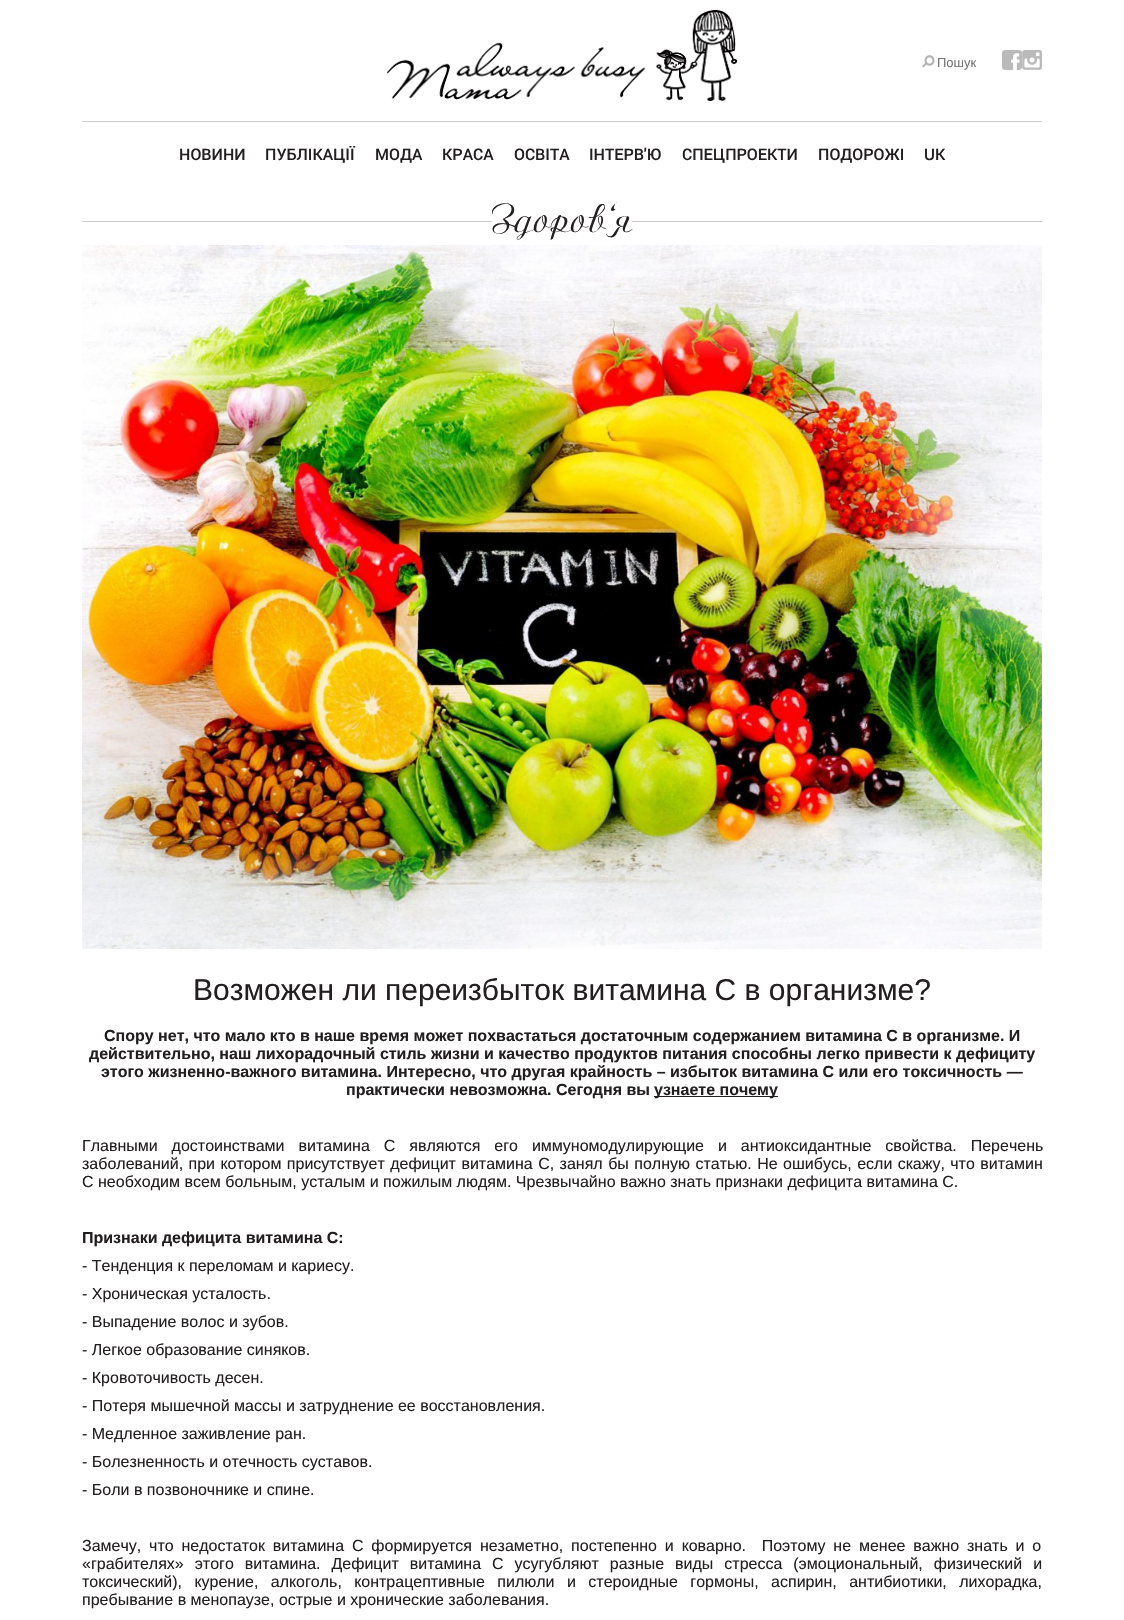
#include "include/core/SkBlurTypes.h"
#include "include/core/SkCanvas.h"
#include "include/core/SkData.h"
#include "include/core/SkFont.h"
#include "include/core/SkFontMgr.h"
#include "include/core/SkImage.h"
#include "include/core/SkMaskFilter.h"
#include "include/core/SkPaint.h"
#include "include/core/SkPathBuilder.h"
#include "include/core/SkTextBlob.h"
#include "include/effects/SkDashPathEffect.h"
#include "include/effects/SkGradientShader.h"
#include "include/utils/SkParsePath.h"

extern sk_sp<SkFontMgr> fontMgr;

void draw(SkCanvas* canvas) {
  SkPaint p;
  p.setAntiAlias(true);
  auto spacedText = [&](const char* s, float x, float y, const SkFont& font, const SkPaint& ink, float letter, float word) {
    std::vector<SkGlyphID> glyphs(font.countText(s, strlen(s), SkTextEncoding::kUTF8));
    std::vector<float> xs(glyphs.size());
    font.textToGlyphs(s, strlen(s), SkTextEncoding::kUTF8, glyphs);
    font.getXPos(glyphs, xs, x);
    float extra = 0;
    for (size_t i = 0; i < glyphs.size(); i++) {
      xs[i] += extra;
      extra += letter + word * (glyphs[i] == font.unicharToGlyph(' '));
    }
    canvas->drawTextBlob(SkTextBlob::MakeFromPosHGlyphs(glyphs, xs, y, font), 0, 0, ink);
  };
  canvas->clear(SK_ColorWHITE);
  canvas->drawImageRect(SkImages::DeferredFromEncodedData(SkData::MakeFromFileName("images/1.png")), SkRect::MakeLTRB(387, 10, 737, 101), SkSamplingOptions());
  canvas->drawImageRect(SkImages::DeferredFromEncodedData(SkData::MakeFromFileName("images/2.png")), SkRect::MakeLTRB(922, 55, 935, 68), SkSamplingOptions());
  canvas->drawImageRect(SkImages::DeferredFromEncodedData(SkData::MakeFromFileName("images/3.png")), SkRect::MakeLTRB(1002, 50, 1022, 70), SkSamplingOptions());
  canvas->drawImageRect(SkImages::DeferredFromEncodedData(SkData::MakeFromFileName("images/4.png")), SkRect::MakeLTRB(1022, 50, 1042, 70), SkSamplingOptions());
  p.setColor(SkColorSetRGB(205, 203, 203));
  canvas->drawRect(SkRect::MakeLTRB(82, 121, 1042, 122), p);
  canvas->drawRect(SkRect::MakeLTRB(82, 221, 1042, 222), p);
  p.setColor(SK_ColorWHITE);
  canvas->drawRect(SkRect::MakeLTRB(492, 221, 632, 222), p);
  canvas->drawImageRect(SkImages::DeferredFromEncodedData(SkData::MakeFromFileName("images/5.png")), SkRect::MakeLTRB(82, 245, 1042, 949), SkSamplingOptions());
  p.setColor(SkColorSetRGB(35, 31, 32));
  canvas->drawRect(SkRect::MakeLTRB(654, 1096, 778, 1097), p);
  SkFont font1(fontMgr->matchFamilyStyle("Liberation Sans", SkFontStyle::Normal()), 13);
  font1.setSubpixel(true);
  p.setColor(SkColorSetRGB(117, 117, 117));
  canvas->drawString("Пошук", 937, 67, font1, p);
  SkFont font2(fontMgr->matchFamilyStyle("Roboto", SkFontStyle(500, SkFontStyle::kNormal_Width, SkFontStyle::kUpright_Slant)), 16);
  font2.setSubpixel(true);
  p.setColor(SkColorSetRGB(35, 31, 32));
  canvas->drawString("НОВИНИ", 179, 160, font2, p);
  canvas->drawString("ПУБЛІКАЦІЇ", 265, 160, font2, p);
  canvas->drawString("МОДА", 375, 160, font2, p);
  canvas->drawString("КРАСА", 442, 160, font2, p);
  canvas->drawString("ОСВІТА", 514, 160, font2, p);
  canvas->drawString("ІНТЕРВ'Ю", 589, 160, font2, p);
  canvas->drawString("СПЕЦПРОЕКТИ", 682, 160, font2, p);
  canvas->drawString("ПОДОРОЖІ", 818, 160, font2, p);
  canvas->drawString("UK", 924, 160, font2, p);
  SkFont font3(fontMgr->matchFamilyStyle("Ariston", SkFontStyle::Normal()), 40);
  font3.setSubpixel(true);
  canvas->drawString("Здоров'я", 492, 232, font3, p);
  SkFont font4(fontMgr->matchFamilyStyle("Liberation Sans", SkFontStyle::Normal()), 30);
  font4.setSubpixel(true);
  canvas->drawString("Возможен ли переизбыток витамина С в организме?", 193, 1000, font4, p);
  SkFont font5(fontMgr->matchFamilyStyle("Liberation Sans", SkFontStyle::Bold()), 16);
  font5.setSubpixel(true);
  canvas->drawString("Спору нет, что мало кто в наше время может похвастаться достаточным содержанием витамина С в организме. И", 104, 1041, font5, p);
  canvas->drawString("действительно, наш лихорадочный стиль жизни и качество продуктов питания способны легко привести к дефициту", 89, 1059, font5, p);
  canvas->drawString("этого жизненно-важного витамина. Интересно, что другая крайность – избыток витамина С или его токсичность —", 101, 1077, font5, p);
  canvas->drawString("практически невозможна. Сегодня вы", 346, 1095, font5, p);
  canvas->drawString("узнаете почему", 654, 1095, font5, p);
  SkFont font6(fontMgr->matchFamilyStyle("Liberation Sans", SkFontStyle::Normal()), 16);
  font6.setSubpixel(true);
  spacedText("Главными достоинствами витамина С являются его иммуномодулирующие и антиоксидантные свойства. Перечень", 82, 1151, font6, p, 0, 9.5f);
  spacedText("заболеваний, при котором присутствует дефицит витамина С, занял бы полную статью. Не ошибусь, если скажу, что витамин", 82, 1169, font6, p, 0, 1);
  canvas->drawString("С необходим всем больным, усталым и пожилым людям. Чрезвычайно важно знать признаки дефицита витамина С.", 82, 1187, font6, p);
  canvas->drawString("Признаки дефицита витамина С:", 82, 1243, font5, p);
  canvas->drawString("- Тенденция к переломам и кариесу.", 82, 1271, font6, p);
  canvas->drawString("- Хроническая усталость.", 82, 1299, font6, p);
  canvas->drawString("- Выпадение волос и зубов.", 82, 1327, font6, p);
  canvas->drawString("- Легкое образование синяков.", 82, 1355, font6, p);
  canvas->drawString("- Кровоточивость десен.", 82, 1383, font6, p);
  canvas->drawString("- Потеря мышечной массы и затруднение ее восстановления.", 82, 1411, font6, p);
  canvas->drawString("- Медленное заживление ран.", 82, 1439, font6, p);
  canvas->drawString("- Болезненность и отечность суставов.", 82, 1467, font6, p);
  canvas->drawString("- Боли в позвоночнике и спине.", 82, 1495, font6, p);
  spacedText("Замечу, что недостаток витамина С формируется незаметно, постепенно и коварно.  Поэтому не менее важно знать и о", 82, 1551, font6, p, 0, 3.4f);
  spacedText("«грабителях» этого витамина. Дефицит витамина С усугубляют разные виды стресса (эмоциональный, физический и", 82, 1569, font6, p, 0, 6.5f);
  spacedText("токсический), курение, алкоголь, контрацептивные пилюли и стероидные гормоны, аспирин, антибиотики, лихорадка,", 82, 1587, font6, p, 0, 8);
  canvas->drawString("пребывание в менопаузе, острые и хронические заболевания.", 82, 1605, font6, p);
}
